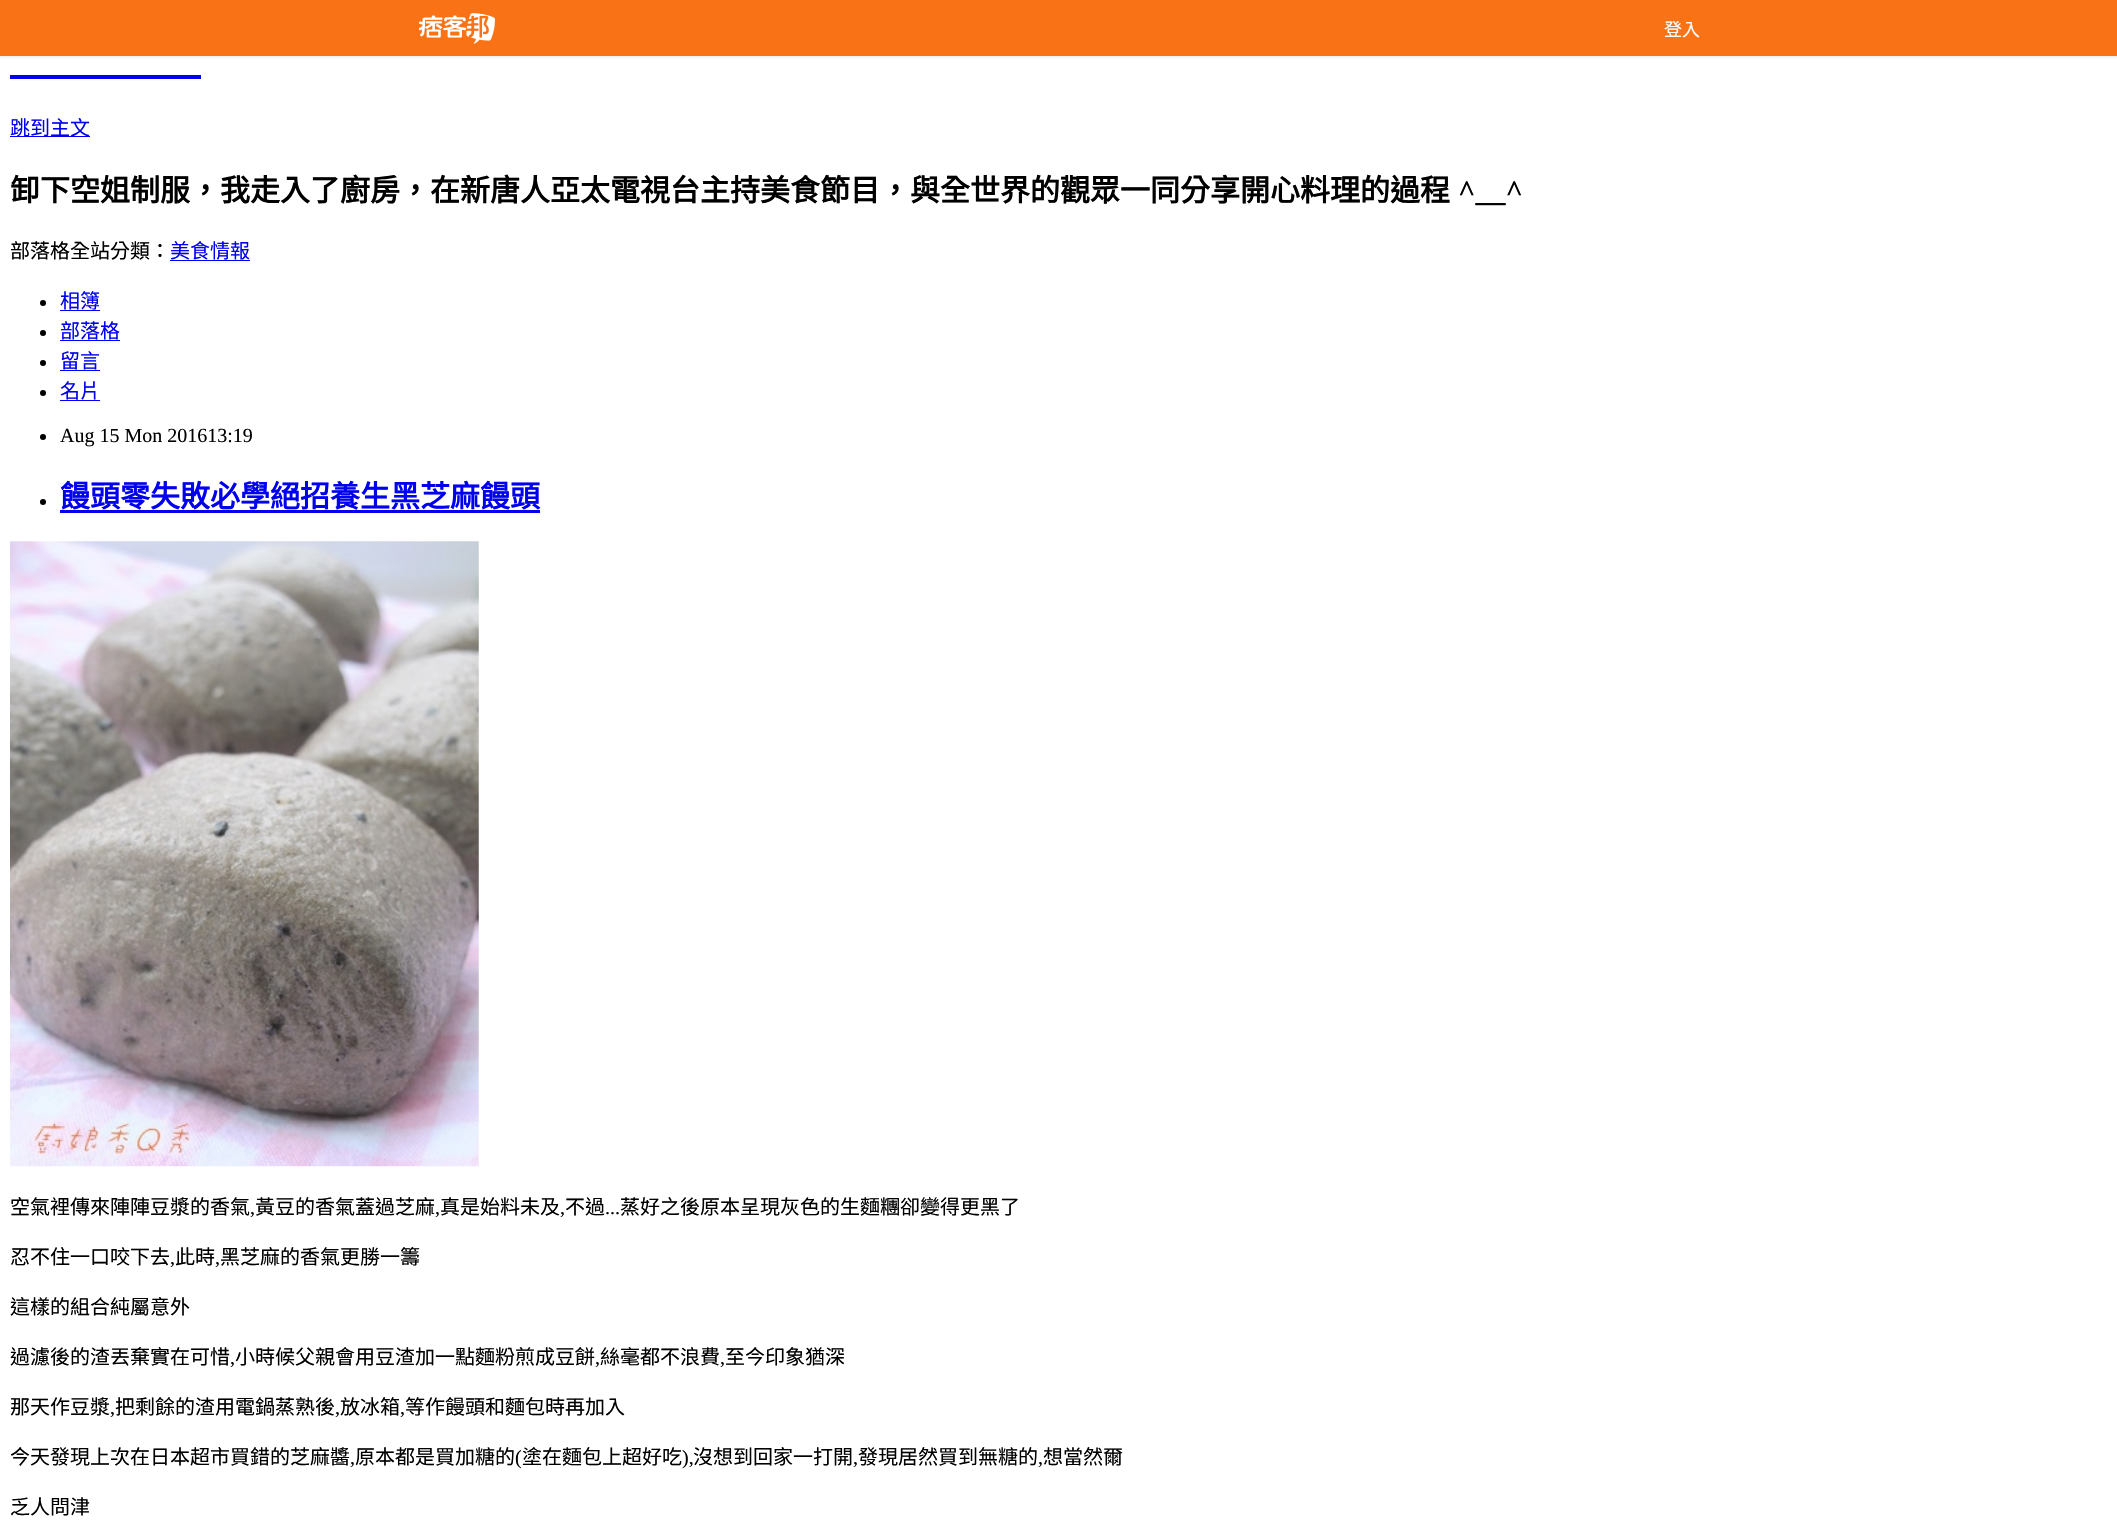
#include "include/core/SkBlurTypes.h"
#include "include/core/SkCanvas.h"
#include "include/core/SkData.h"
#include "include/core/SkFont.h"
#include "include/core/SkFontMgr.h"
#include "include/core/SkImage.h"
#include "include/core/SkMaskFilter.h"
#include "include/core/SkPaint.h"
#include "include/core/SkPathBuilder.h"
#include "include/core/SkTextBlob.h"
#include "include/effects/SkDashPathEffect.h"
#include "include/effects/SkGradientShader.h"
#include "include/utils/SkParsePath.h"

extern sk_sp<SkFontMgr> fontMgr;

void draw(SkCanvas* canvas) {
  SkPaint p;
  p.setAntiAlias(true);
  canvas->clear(SK_ColorWHITE);
  p.setColor(SkColorSetARGB(13, 0, 0, 0));
  p.setMaskFilter(SkMaskFilter::MakeBlur(kNormal_SkBlurStyle, 1));
  canvas->drawRect(SkRect::MakeLTRB(0, 1, 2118, 58), p);
  p.setMaskFilter(nullptr);
  p.setColor(SkColorSetRGB(249, 115, 22));
  canvas->drawRect(SkRect::MakeLTRB(0, 0, 2117, 56), p);
  canvas->drawImageRect(SkImages::DeferredFromEncodedData(SkData::MakeFromFileName("images/1.png")), SkRect::MakeLTRB(419, 13, 495, 44), SkSamplingOptions());
  p.setColor(SkColorSetRGB(0, 0, 238));
  canvas->drawRect(SkRect::MakeLTRB(10, 75, 201, 79), p);
  canvas->drawRect(SkRect::MakeLTRB(10, 136, 90, 137), p);
  canvas->drawRect(SkRect::MakeLTRB(170, 260, 250, 261), p);
  p.setColor(SK_ColorBLACK);
  canvas->drawCircle(43, 303, 3, p);
  p.setColor(SkColorSetRGB(0, 0, 238));
  canvas->drawRect(SkRect::MakeLTRB(60, 310, 100, 311), p);
  p.setColor(SK_ColorBLACK);
  canvas->drawCircle(43, 333, 3, p);
  p.setColor(SkColorSetRGB(0, 0, 238));
  canvas->drawRect(SkRect::MakeLTRB(60, 340, 120, 341), p);
  p.setColor(SK_ColorBLACK);
  canvas->drawCircle(43, 363, 3, p);
  p.setColor(SkColorSetRGB(0, 0, 238));
  canvas->drawRect(SkRect::MakeLTRB(60, 370, 100, 371), p);
  p.setColor(SK_ColorBLACK);
  canvas->drawCircle(43, 393, 3, p);
  p.setColor(SkColorSetRGB(0, 0, 238));
  canvas->drawRect(SkRect::MakeLTRB(60, 400, 100, 401), p);
  p.setColor(SK_ColorBLACK);
  canvas->drawCircle(43, 437, 3, p);
  canvas->drawCircle(43, 502, 3, p);
  p.setColor(SkColorSetRGB(0, 0, 238));
  canvas->drawRect(SkRect::MakeLTRB(60, 510, 540, 513), p);
  canvas->drawImageRect(SkImages::DeferredFromEncodedData(SkData::MakeFromFileName("images/2.png")), SkRect::MakeLTRB(10, 541, 479, 1167), SkSamplingOptions());
  SkFont font1(fontMgr->matchFamilyStyle("Noto Sans CJK TC", SkFontStyle::Normal()), 18);
  font1.setSubpixel(true);
  p.setColor(SK_ColorWHITE);
  canvas->drawString("登入", 1664, 36, font1, p);
  SkFont font2(fontMgr->matchFamilyStyle("Noto Sans CJK TC", SkFontStyle::Normal()), 20);
  font2.setSubpixel(true);
  p.setColor(SkColorSetRGB(0, 0, 238));
  canvas->drawString("跳到主文", 10, 135, font2, p);
  SkFont font3(fontMgr->matchFamilyStyle("Noto Sans CJK TC", SkFontStyle::Bold()), 30);
  font3.setSubpixel(true);
  p.setColor(SK_ColorBLACK);
  canvas->drawString("卸下空姐制服，我走入了廚房，在新唐人亞太電視台主持美食節目，與全世界的觀眾一同分享開心料理的過程", 10, 201, font3, p);
  SkFont font4(fontMgr->matchFamilyStyle("Liberation Serif", SkFontStyle::Bold()), 30);
  font4.setSubpixel(true);
  canvas->drawString("^__^", 1458, 201, font4, p);
  canvas->drawString("部落格全站分類：", 10, 258, font2, p);
  p.setColor(SkColorSetRGB(0, 0, 238));
  canvas->drawString("美食情報", 170, 258, font2, p);
  canvas->drawString("相簿", 60, 308, font2, p);
  canvas->drawString("部落格", 60, 338, font2, p);
  canvas->drawString("留言", 60, 368, font2, p);
  canvas->drawString("名片", 60, 398, font2, p);
  SkFont font5(fontMgr->matchFamilyStyle("Liberation Serif", SkFontStyle::Normal()), 20);
  font5.setSubpixel(true);
  p.setColor(SK_ColorBLACK);
  canvas->drawString("Aug 15 Mon 201613:19", 60, 442, font5, p);
  p.setColor(SkColorSetRGB(0, 0, 238));
  canvas->drawString("饅頭零失敗必學絕招養生黑芝麻饅頭", 60, 507, font3, p);
  p.setColor(SK_ColorBLACK);
  canvas->drawString("空氣裡傳來陣陣豆漿的香氣", 10, 1214, font2, p);
  canvas->drawString(",", 250, 1214, font5, p);
  canvas->drawString("黃豆的香氣蓋過芝麻", 255, 1214, font2, p);
  canvas->drawString(",", 435, 1214, font5, p);
  canvas->drawString("真是始料未及", 440, 1214, font2, p);
  canvas->drawString(",", 560, 1214, font5, p);
  canvas->drawString("不過", 565, 1214, font2, p);
  canvas->drawString("...", 605, 1214, font5, p);
  canvas->drawString("蒸好之後原本呈現灰色的生麵糰卻變得更黑了", 620, 1214, font2, p);
  canvas->drawString("忍不住一口咬下去", 10, 1264, font2, p);
  canvas->drawString(",", 170, 1264, font5, p);
  canvas->drawString("此時", 175, 1264, font2, p);
  canvas->drawString(",", 215, 1264, font5, p);
  canvas->drawString("黑芝麻的香氣更勝一籌", 220, 1264, font2, p);
  canvas->drawString("這樣的組合純屬意外", 10, 1314, font2, p);
  canvas->drawString("過濾後的渣丟棄實在可惜", 10, 1364, font2, p);
  canvas->drawString(",", 230, 1364, font5, p);
  canvas->drawString("小時候父親會用豆渣加一點麵粉煎成豆餅", 235, 1364, font2, p);
  canvas->drawString(",", 595, 1364, font5, p);
  canvas->drawString("絲毫都不浪費", 600, 1364, font2, p);
  canvas->drawString(",", 720, 1364, font5, p);
  canvas->drawString("至今印象猶深", 725, 1364, font2, p);
  canvas->drawString("那天作豆漿", 10, 1414, font2, p);
  canvas->drawString(",", 110, 1414, font5, p);
  canvas->drawString("把剩餘的渣用電鍋蒸熟後", 115, 1414, font2, p);
  canvas->drawString(",", 335, 1414, font5, p);
  canvas->drawString("放冰箱", 340, 1414, font2, p);
  canvas->drawString(",", 400, 1414, font5, p);
  canvas->drawString("等作饅頭和麵包時再加入", 405, 1414, font2, p);
  canvas->drawString("今天發現上次在日本超市買錯的芝麻醬", 10, 1464, font2, p);
  canvas->drawString(",", 350, 1464, font5, p);
  canvas->drawString("原本都是買加糖的", 355, 1464, font2, p);
  canvas->drawString("(", 515, 1464, font5, p);
  canvas->drawString("塗在麵包上超好吃", 522, 1464, font2, p);
  canvas->drawString("),", 682, 1464, font5, p);
  canvas->drawString("沒想到回家一打開", 693, 1464, font2, p);
  canvas->drawString(",", 853, 1464, font5, p);
  canvas->drawString("發現居然買到無糖的", 858, 1464, font2, p);
  canvas->drawString(",", 1038, 1464, font5, p);
  canvas->drawString("想當然爾", 1043, 1464, font2, p);
  canvas->drawString("乏人問津", 10, 1514, font2, p);
}
